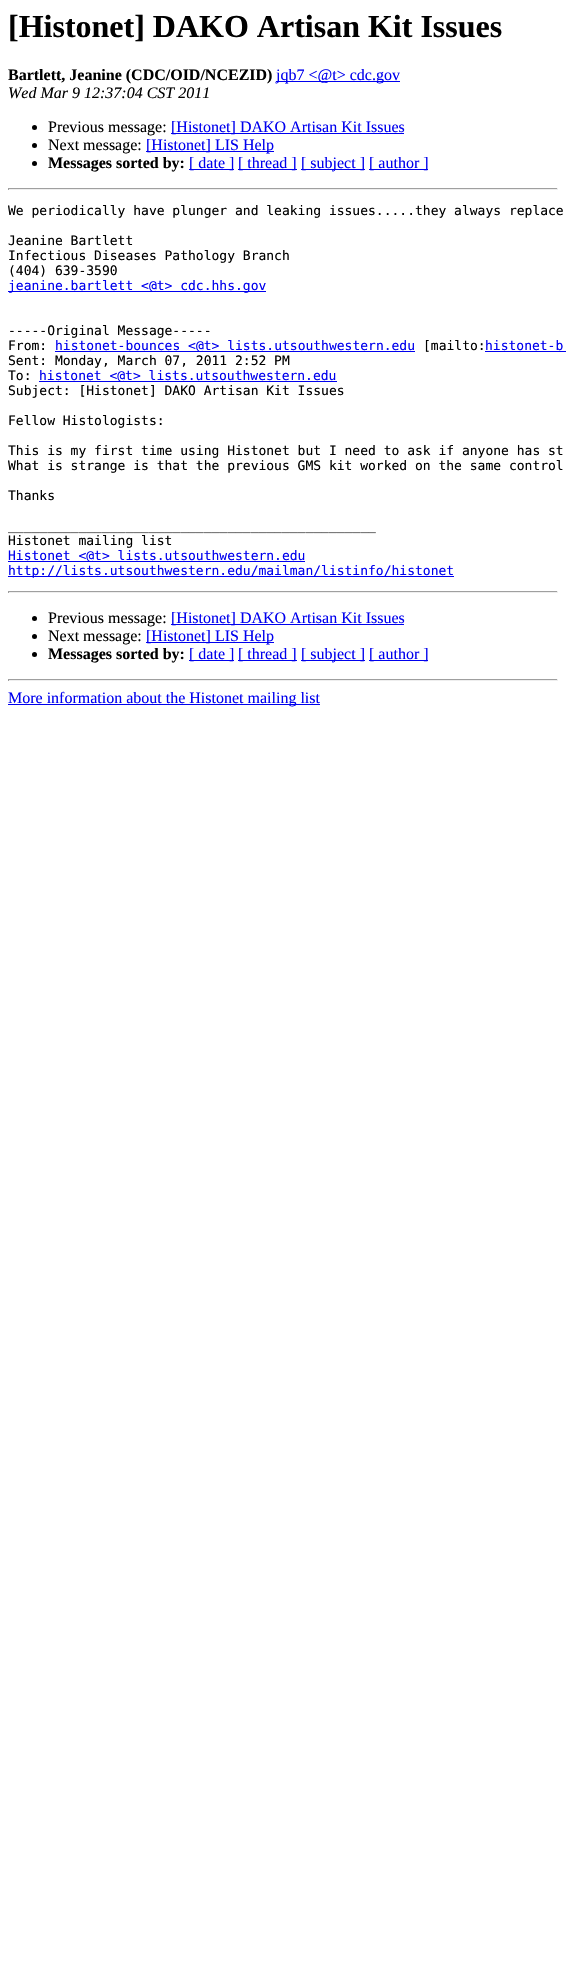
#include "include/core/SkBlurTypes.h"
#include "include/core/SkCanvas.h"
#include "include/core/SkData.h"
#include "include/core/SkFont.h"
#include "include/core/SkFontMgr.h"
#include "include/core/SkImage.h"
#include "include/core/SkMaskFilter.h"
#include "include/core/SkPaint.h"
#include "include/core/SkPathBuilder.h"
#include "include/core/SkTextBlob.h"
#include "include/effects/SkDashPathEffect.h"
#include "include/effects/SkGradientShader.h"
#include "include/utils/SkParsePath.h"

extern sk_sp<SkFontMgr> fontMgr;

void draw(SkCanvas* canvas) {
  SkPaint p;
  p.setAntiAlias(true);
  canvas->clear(SK_ColorWHITE);
  p.setColor(SkColorSetRGB(0, 0, 238));
  canvas->drawRect(SkRect::MakeLTRB(276, 81, 400, 82), p);
  p.setColor(SK_ColorBLACK);
  canvas->drawCircle(34.5f, 127.5f, 2.5f, p);
  p.setColor(SkColorSetRGB(0, 0, 238));
  canvas->drawRect(SkRect::MakeLTRB(171, 133, 404, 134), p);
  p.setColor(SK_ColorBLACK);
  canvas->drawCircle(34.5f, 145.5f, 2.5f, p);
  p.setColor(SkColorSetRGB(0, 0, 238));
  canvas->drawRect(SkRect::MakeLTRB(146, 151, 274, 152), p);
  p.setColor(SK_ColorBLACK);
  canvas->drawCircle(34.5f, 163.5f, 2.5f, p);
  p.setColor(SkColorSetRGB(0, 0, 238));
  canvas->drawRect(SkRect::MakeLTRB(189, 169, 234, 170), p);
  canvas->drawRect(SkRect::MakeLTRB(238, 169, 297, 170), p);
  canvas->drawRect(SkRect::MakeLTRB(301, 169, 365, 170), p);
  canvas->drawRect(SkRect::MakeLTRB(369, 169, 428, 170), p);
  p.setColor(SkColorSetRGB(159, 159, 159));
  canvas->drawRect(SkRect::MakeLTRB(8, 188, 558, 189), p);
  p.setColor(SkColorSetRGB(238, 238, 238));
  canvas->drawRect(SkRect::MakeLTRB(557, 188, 558, 190), p);
  canvas->drawRect(SkRect::MakeLTRB(8, 189, 558, 190), p);
  p.setColor(SkColorSetRGB(159, 159, 159));
  canvas->drawRect(SkRect::MakeLTRB(8, 188, 9, 190), p);
  p.setColor(SkColorSetRGB(0, 0, 238));
  canvas->drawRect(SkRect::MakeLTRB(8, 291, 266, 292), p);
  canvas->drawRect(SkRect::MakeLTRB(55, 351, 415, 352), p);
  canvas->drawRect(SkRect::MakeLTRB(485, 351, 566, 352), p);
  canvas->drawRect(SkRect::MakeLTRB(39, 381, 337, 382), p);
  canvas->drawRect(SkRect::MakeLTRB(8, 561, 305, 562), p);
  canvas->drawRect(SkRect::MakeLTRB(8, 576, 454, 577), p);
  p.setColor(SkColorSetRGB(159, 159, 159));
  canvas->drawRect(SkRect::MakeLTRB(8, 591, 558, 592), p);
  p.setColor(SkColorSetRGB(238, 238, 238));
  canvas->drawRect(SkRect::MakeLTRB(557, 591, 558, 593), p);
  canvas->drawRect(SkRect::MakeLTRB(8, 592, 558, 593), p);
  p.setColor(SkColorSetRGB(159, 159, 159));
  canvas->drawRect(SkRect::MakeLTRB(8, 591, 9, 593), p);
  p.setColor(SK_ColorBLACK);
  canvas->drawCircle(34.5f, 618.5f, 2.5f, p);
  p.setColor(SkColorSetRGB(0, 0, 238));
  canvas->drawRect(SkRect::MakeLTRB(171, 624, 404, 625), p);
  p.setColor(SK_ColorBLACK);
  canvas->drawCircle(34.5f, 636.5f, 2.5f, p);
  p.setColor(SkColorSetRGB(0, 0, 238));
  canvas->drawRect(SkRect::MakeLTRB(146, 642, 274, 643), p);
  p.setColor(SK_ColorBLACK);
  canvas->drawCircle(34.5f, 654.5f, 2.5f, p);
  p.setColor(SkColorSetRGB(0, 0, 238));
  canvas->drawRect(SkRect::MakeLTRB(189, 660, 234, 661), p);
  canvas->drawRect(SkRect::MakeLTRB(238, 660, 297, 661), p);
  canvas->drawRect(SkRect::MakeLTRB(301, 660, 365, 661), p);
  canvas->drawRect(SkRect::MakeLTRB(369, 660, 428, 661), p);
  p.setColor(SkColorSetRGB(159, 159, 159));
  canvas->drawRect(SkRect::MakeLTRB(8, 679, 558, 680), p);
  p.setColor(SkColorSetRGB(238, 238, 238));
  canvas->drawRect(SkRect::MakeLTRB(557, 679, 558, 681), p);
  canvas->drawRect(SkRect::MakeLTRB(8, 680, 558, 681), p);
  p.setColor(SkColorSetRGB(159, 159, 159));
  canvas->drawRect(SkRect::MakeLTRB(8, 679, 9, 681), p);
  p.setColor(SkColorSetRGB(0, 0, 238));
  canvas->drawRect(SkRect::MakeLTRB(8, 704, 320, 705), p);
  SkFont font1(fontMgr->matchFamilyStyle("Liberation Serif", SkFontStyle::Bold()), 32);
  font1.setSubpixel(true);
  p.setColor(SK_ColorBLACK);
  canvas->drawString("[Histonet] DAKO Artisan Kit Issues", 8, 37, font1, p);
  SkFont font2(fontMgr->matchFamilyStyle("Liberation Serif", SkFontStyle::Bold()), 16);
  font2.setSubpixel(true);
  canvas->drawString("Bartlett, Jeanine (CDC/OID/NCEZID)", 8, 80, font2, p);
  SkFont font3(fontMgr->matchFamilyStyle("Liberation Serif", SkFontStyle::Normal()), 16);
  font3.setSubpixel(true);
  p.setColor(SkColorSetRGB(0, 0, 238));
  canvas->drawString("jqb7 <@t> cdc.gov", 276, 80, font3, p);
  SkFont font4(fontMgr->matchFamilyStyle("Liberation Serif", SkFontStyle::Italic()), 16);
  font4.setSubpixel(true);
  p.setColor(SK_ColorBLACK);
  canvas->drawString("Wed Mar 9 12:37:04 CST 2011", 8, 98, font4, p);
  canvas->drawString("Previous message:", 48, 132, font3, p);
  p.setColor(SkColorSetRGB(0, 0, 238));
  canvas->drawString("[Histonet] DAKO Artisan Kit Issues", 171, 132, font3, p);
  p.setColor(SK_ColorBLACK);
  canvas->drawString("Next message:", 48, 150, font3, p);
  p.setColor(SkColorSetRGB(0, 0, 238));
  canvas->drawString("[Histonet] LIS Help", 146, 150, font3, p);
  p.setColor(SK_ColorBLACK);
  canvas->drawString("Messages sorted by:", 48, 168, font2, p);
  p.setColor(SkColorSetRGB(0, 0, 238));
  canvas->drawString("[ date ]", 189, 168, font3, p);
  canvas->drawString("[ thread ]", 238, 168, font3, p);
  canvas->drawString("[ subject ]", 301, 168, font3, p);
  canvas->drawString("[ author ]", 369, 168, font3, p);
  SkFont font5(fontMgr->matchFamilyStyle("DejaVu Sans Mono", SkFontStyle::Normal()), 13);
  font5.setSubpixel(true);
  p.setColor(SK_ColorBLACK);
  canvas->drawString("We periodically have plunger and leaking issues.....they always replace", 8, 215, font5, p);
  canvas->drawString("Jeanine Bartlett", 8, 245, font5, p);
  canvas->drawString("Infectious Diseases Pathology Branch", 8, 260, font5, p);
  canvas->drawString("(404) 639-3590", 8, 275, font5, p);
  p.setColor(SkColorSetRGB(0, 0, 238));
  canvas->drawString("jeanine.bartlett <@t> cdc.hhs.gov", 8, 290, font5, p);
  p.setColor(SK_ColorBLACK);
  canvas->drawString("-----Original Message-----", 8, 335, font5, p);
  canvas->drawString("From:", 8, 350, font5, p);
  p.setColor(SkColorSetRGB(0, 0, 238));
  canvas->drawString("histonet-bounces <@t> lists.utsouthwestern.edu", 55, 350, font5, p);
  p.setColor(SK_ColorBLACK);
  canvas->drawString("[mailto:", 423, 350, font5, p);
  p.setColor(SkColorSetRGB(0, 0, 238));
  canvas->drawString("histonet-b", 485, 350, font5, p);
  p.setColor(SK_ColorBLACK);
  canvas->drawString("Sent: Monday, March 07, 2011 2:52 PM", 8, 365, font5, p);
  canvas->drawString("To:", 8, 380, font5, p);
  p.setColor(SkColorSetRGB(0, 0, 238));
  canvas->drawString("histonet <@t> lists.utsouthwestern.edu", 39, 380, font5, p);
  p.setColor(SK_ColorBLACK);
  canvas->drawString("Subject: [Histonet] DAKO Artisan Kit Issues", 8, 395, font5, p);
  canvas->drawString("Fellow Histologists:", 8, 425, font5, p);
  canvas->drawString("This is my first time using Histonet but I need to ask if anyone has st", 8, 455, font5, p);
  canvas->drawString("What is strange is that the previous GMS kit worked on the same control", 8, 470, font5, p);
  canvas->drawString("Thanks", 8, 500, font5, p);
  canvas->drawString("_______________________________________________", 8, 530, font5, p);
  canvas->drawString("Histonet mailing list", 8, 545, font5, p);
  p.setColor(SkColorSetRGB(0, 0, 238));
  canvas->drawString("Histonet <@t> lists.utsouthwestern.edu", 8, 560, font5, p);
  canvas->drawString("http://lists.utsouthwestern.edu/mailman/listinfo/histonet", 8, 575, font5, p);
  p.setColor(SK_ColorBLACK);
  canvas->drawString("Previous message:", 48, 623, font3, p);
  p.setColor(SkColorSetRGB(0, 0, 238));
  canvas->drawString("[Histonet] DAKO Artisan Kit Issues", 171, 623, font3, p);
  p.setColor(SK_ColorBLACK);
  canvas->drawString("Next message:", 48, 641, font3, p);
  p.setColor(SkColorSetRGB(0, 0, 238));
  canvas->drawString("[Histonet] LIS Help", 146, 641, font3, p);
  p.setColor(SK_ColorBLACK);
  canvas->drawString("Messages sorted by:", 48, 659, font2, p);
  p.setColor(SkColorSetRGB(0, 0, 238));
  canvas->drawString("[ date ]", 189, 659, font3, p);
  canvas->drawString("[ thread ]", 238, 659, font3, p);
  canvas->drawString("[ subject ]", 301, 659, font3, p);
  canvas->drawString("[ author ]", 369, 659, font3, p);
  canvas->drawString("More information about the Histonet mailing list", 8, 703, font3, p);
}
